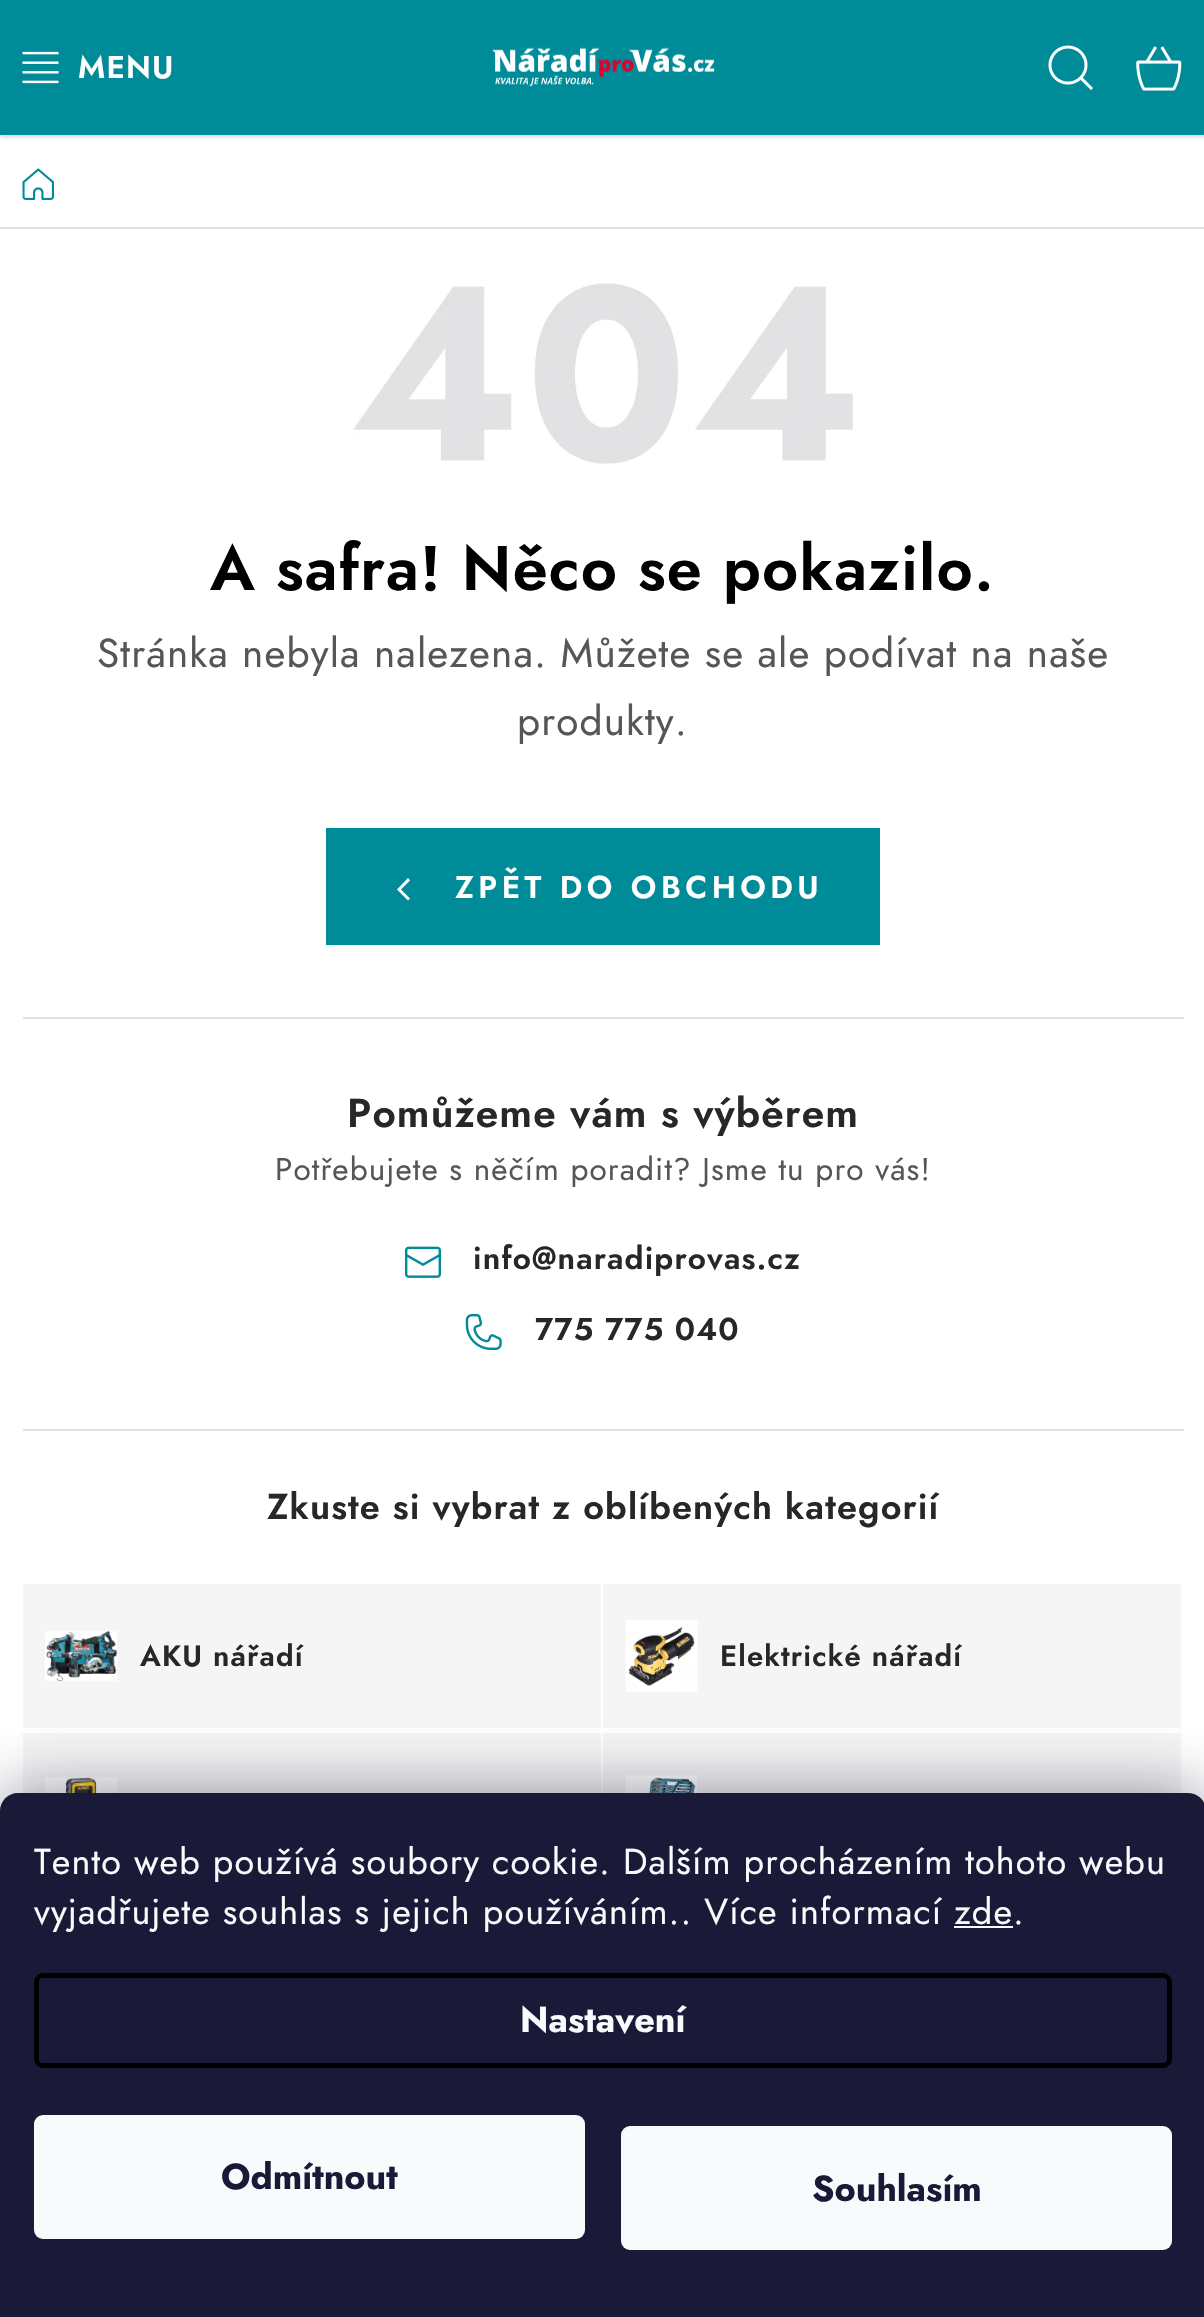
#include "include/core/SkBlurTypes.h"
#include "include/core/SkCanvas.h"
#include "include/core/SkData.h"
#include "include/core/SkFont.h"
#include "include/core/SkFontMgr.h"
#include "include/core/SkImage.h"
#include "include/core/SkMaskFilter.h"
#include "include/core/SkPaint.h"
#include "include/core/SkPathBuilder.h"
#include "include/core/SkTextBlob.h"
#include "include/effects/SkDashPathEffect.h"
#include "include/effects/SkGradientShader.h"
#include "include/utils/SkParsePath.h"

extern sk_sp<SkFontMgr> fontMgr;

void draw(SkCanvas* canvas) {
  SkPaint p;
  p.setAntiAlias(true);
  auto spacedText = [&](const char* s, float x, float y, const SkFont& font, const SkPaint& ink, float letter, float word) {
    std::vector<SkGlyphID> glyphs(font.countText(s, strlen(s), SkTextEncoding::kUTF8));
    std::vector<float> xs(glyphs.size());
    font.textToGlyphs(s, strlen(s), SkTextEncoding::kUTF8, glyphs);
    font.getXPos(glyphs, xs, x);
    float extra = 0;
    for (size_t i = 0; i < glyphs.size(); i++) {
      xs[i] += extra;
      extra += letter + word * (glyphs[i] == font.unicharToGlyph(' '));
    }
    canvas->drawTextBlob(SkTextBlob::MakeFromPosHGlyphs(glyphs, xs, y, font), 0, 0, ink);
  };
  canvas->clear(SK_ColorWHITE);
  p.setColor(SkColorSetARGB(41, 0, 0, 0));
  p.setMaskFilter(SkMaskFilter::MakeBlur(kNormal_SkBlurStyle, 2));
  canvas->drawRect(SkRect::MakeLTRB(0, 2, 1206, 137), p);
  p.setMaskFilter(nullptr);
  p.setColor(SkColorSetRGB(0, 139, 153));
  canvas->drawRect(SkRect::MakeLTRB(0, 0, 1204, 135), p);
  canvas->drawImageRect(SkImages::DeferredFromEncodedData(SkData::MakeFromFileName("images/1.png")), SkRect::MakeLTRB(22, 51, 59, 84), SkSamplingOptions());
  canvas->drawImageRect(SkImages::DeferredFromEncodedData(SkData::MakeFromFileName("images/2.png")), SkRect::MakeLTRB(1048, 45, 1093, 90), SkSamplingOptions());
  canvas->drawImageRect(SkImages::DeferredFromEncodedData(SkData::MakeFromFileName("images/3.png")), SkRect::MakeLTRB(1136, 46, 1182, 91), SkSamplingOptions());
  canvas->drawImageRect(SkImages::DeferredFromEncodedData(SkData::MakeFromFileName("images/4.png")), SkRect::MakeLTRB(492, 47, 715, 87), SkSamplingOptions());
  p.setColor(SkColorSetRGB(225, 225, 226));
  canvas->drawRect(SkRect::MakeLTRB(0, 227, 1204, 229), p);
  canvas->drawImageRect(SkImages::DeferredFromEncodedData(SkData::MakeFromFileName("images/5.png")), SkRect::MakeLTRB(22, 168, 54, 200), SkSamplingOptions());
  canvas->drawImageRect(SkImages::DeferredFromEncodedData(SkData::MakeFromFileName("images/6.png")), SkRect::MakeLTRB(353, 283, 853, 464), SkSamplingOptions());
  p.setColor(SkColorSetRGB(0, 139, 153));
  canvas->drawRect(SkRect::MakeLTRB(326, 828, 880, 945), p);
  p.setColor(SK_ColorWHITE);
  canvas->drawPath(SkPathBuilder().moveTo(410, 880.5f).lineTo(401, 889.5f).lineTo(410, 898.5f).lineTo(408, 900.5f).lineTo(397, 889.5f).lineTo(408, 878).close().detach(), p);
  p.setColor(SkColorSetRGB(225, 225, 226));
  canvas->drawRect(SkRect::MakeLTRB(23, 1017, 1184, 1019), p);
  canvas->drawImageRect(SkImages::DeferredFromEncodedData(SkData::MakeFromFileName("images/7.png")), SkRect::MakeLTRB(405, 1246, 441, 1278), SkSamplingOptions());
  canvas->drawImageRect(SkImages::DeferredFromEncodedData(SkData::MakeFromFileName("images/8.png")), SkRect::MakeLTRB(465, 1314, 502, 1350), SkSamplingOptions());
  canvas->drawRect(SkRect::MakeLTRB(23, 1429, 1184, 1431), p);
  p.setColor(SkColorSetRGB(245, 245, 245));
  canvas->drawRect(SkRect::MakeLTRB(23, 1584, 601, 1728), p);
  canvas->drawImageRect(SkImages::DeferredFromEncodedData(SkData::MakeFromFileName("images/9.png")), SkRect::MakeLTRB(45, 1631, 117, 1681), SkSamplingOptions());
  canvas->drawRect(SkRect::MakeLTRB(603, 1584, 1181, 1728), p);
  canvas->drawImageRect(SkImages::DeferredFromEncodedData(SkData::MakeFromFileName("images/10.png")), SkRect::MakeLTRB(625, 1620, 698, 1692), SkSamplingOptions());
  canvas->drawRect(SkRect::MakeLTRB(23, 1733, 601, 1793), p);
  canvas->drawImageRect(SkImages::DeferredFromEncodedData(SkData::MakeFromFileName("images/11.png")), SkRect::MakeLTRB(45, 1777, 117, 1793), SkSamplingOptions());
  canvas->drawRect(SkRect::MakeLTRB(603, 1733, 1181, 1793), p);
  canvas->drawImageRect(SkImages::DeferredFromEncodedData(SkData::MakeFromFileName("images/12.png")), SkRect::MakeLTRB(625, 1775, 698, 1793), SkSamplingOptions());
  p.setColor(SkColorSetARGB(128, 27, 25, 57));
  p.setMaskFilter(SkMaskFilter::MakeBlur(kNormal_SkBlurStyle, 34));
  canvas->drawRoundRect(SkRect::MakeLTRB(0, 1793, 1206, 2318), 18, 18, p);
  p.setMaskFilter(nullptr);
  p.setColor(SkColorSetRGB(26, 25, 55));
  canvas->drawPath(SkPathBuilder().moveTo(18, 1793).lineTo(1188, 1793).cubicTo(1198, 1793, 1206, 1801, 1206, 1811).lineTo(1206, 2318).lineTo(0, 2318).lineTo(0, 1811).cubicTo(0, 1801, 8, 1793, 18, 1793).close().detach(), p);
  p.setColor(SkColorSetRGB(248, 250, 251));
  canvas->drawRect(SkRect::MakeLTRB(954, 1926, 1013, 1928), p);
  p.setStyle(SkPaint::kStroke_Style);
  p.setStrokeWidth(5);
  p.setColor(SK_ColorBLACK);
  canvas->drawRoundRect(SkRect::MakeLTRB(36.5f, 1975.5f, 1169.5f, 2065.5f), 6.5f, 6.5f, p);
  p.setStyle(SkPaint::kFill_Style);
  p.setColor(SkColorSetRGB(248, 250, 251));
  canvas->drawRoundRect(SkRect::MakeLTRB(34, 2115, 585, 2239), 9, 9, p);
  canvas->drawRoundRect(SkRect::MakeLTRB(621, 2126, 1172, 2250), 9, 9, p);
  SkFont font1(fontMgr->matchFamilyStyle("Jost", SkFontStyle(600, SkFontStyle::kNormal_Width, SkFontStyle::kUpright_Slant)), 31.5f);
  font1.setSubpixel(true);
  p.setColor(SK_ColorWHITE);
  spacedText("MENU", 78, 78, font1, p, 1.12f, 0);
  SkFont font2(fontMgr->matchFamilyStyle("Jost", SkFontStyle(600, SkFontStyle::kNormal_Width, SkFontStyle::kUpright_Slant)), 63);
  font2.setSubpixel(true);
  p.setColor(SK_ColorBLACK);
  spacedText("A safra! Něco se pokazilo.", 210, 590, font2, p, 1.12f, 0);
  SkFont font3(fontMgr->matchFamilyStyle("Jost", SkFontStyle::Normal()), 40.5f);
  font3.setSubpixel(true);
  p.setColor(SkColorSetRGB(85, 86, 88));
  spacedText("Stránka nebyla nalezena. Můžete se ale podívat na naše", 97, 667, font3, p, 1.12f, 0);
  spacedText("produkty.", 517, 735, font3, p, 1.12f, 0);
  p.setColor(SK_ColorWHITE);
  spacedText("ZPĚT DO OBCHODU", 455, 898, font1, p, 4.5f, 0);
  SkFont font4(fontMgr->matchFamilyStyle("Jost", SkFontStyle(600, SkFontStyle::kNormal_Width, SkFontStyle::kUpright_Slant)), 40.5f);
  font4.setSubpixel(true);
  p.setColor(SkColorSetRGB(37, 39, 41));
  spacedText("Pomůžeme vám s výběrem", 347, 1127, font4, p, 1.12f, 0);
  SkFont font5(fontMgr->matchFamilyStyle("Jost", SkFontStyle::Normal()), 31.5f);
  font5.setSubpixel(true);
  p.setColor(SkColorSetRGB(85, 86, 88));
  spacedText("Potřebujete s něčím poradit? Jsme tu pro vás!", 275, 1180, font5, p, 1.12f, 0);
  p.setColor(SkColorSetRGB(37, 39, 41));
  spacedText("info@naradiprovas.cz", 473, 1269, font1, p, 1.12f, 0);
  spacedText("775 775 040", 535, 1340, font1, p, 1.12f, 0);
  SkFont font6(fontMgr->matchFamilyStyle("Jost", SkFontStyle(600, SkFontStyle::kNormal_Width, SkFontStyle::kUpright_Slant)), 36);
  font6.setSubpixel(true);
  spacedText("Zkuste si vybrat z oblíbených kategorií", 267, 1519, font6, p, 1.12f, 0);
  SkFont font7(fontMgr->matchFamilyStyle("Jost", SkFontStyle(600, SkFontStyle::kNormal_Width, SkFontStyle::kUpright_Slant)), 29.25f);
  font7.setSubpixel(true);
  spacedText("AKU nářadí", 140, 1666, font7, p, 1.12f, 0);
  spacedText("Elektrické nářadí", 720, 1666, font7, p, 1.12f, 0);
  SkFont font8(fontMgr->matchFamilyStyle("Jost", SkFontStyle::Normal()), 36);
  font8.setSubpixel(true);
  p.setColor(SkColorSetRGB(248, 250, 251));
  spacedText("Tento web používá soubory cookie. Dalším procházením tohoto webu", 34, 1874, font8, p, 1.12f, 0);
  spacedText("vyjadřujete souhlas s jejich používáním.. Více informací zde.", 34, 1924, font8, p, 1.12f, 0);
  SkFont font9(fontMgr->matchFamilyStyle("Jost", SkFontStyle::Bold()), 36);
  font9.setSubpixel(true);
  canvas->drawString("Nastavení", 520, 2032, font9, p);
  p.setColor(SkColorSetRGB(26, 25, 55));
  canvas->drawString("Odmítnout", 221, 2189, font9, p);
  canvas->drawString("Souhlasím", 812, 2201, font9, p);
}
